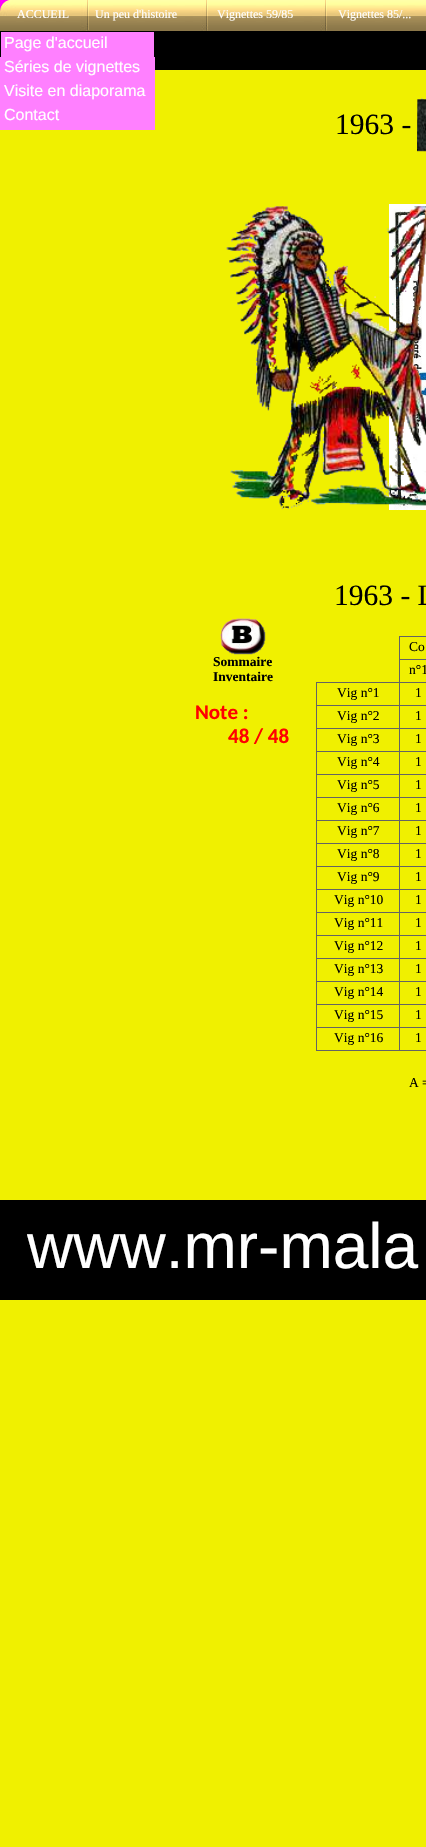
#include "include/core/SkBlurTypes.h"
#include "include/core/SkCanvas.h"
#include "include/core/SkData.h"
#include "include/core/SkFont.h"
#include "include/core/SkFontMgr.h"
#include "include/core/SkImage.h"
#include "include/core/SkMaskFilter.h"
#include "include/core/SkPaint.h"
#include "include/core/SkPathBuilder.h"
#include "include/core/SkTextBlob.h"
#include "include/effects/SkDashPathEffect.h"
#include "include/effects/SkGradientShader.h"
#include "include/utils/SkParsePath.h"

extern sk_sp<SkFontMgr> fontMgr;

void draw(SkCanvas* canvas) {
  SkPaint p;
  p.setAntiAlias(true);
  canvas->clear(SkColorSetRGB(240, 240, 0));
  canvas->drawImageRect(SkImages::DeferredFromEncodedData(SkData::MakeFromFileName("images/1.png")), SkRect::MakeLTRB(0, 0, 89, 31), SkSamplingOptions());
  canvas->drawImageRect(SkImages::DeferredFromEncodedData(SkData::MakeFromFileName("images/2.png")), SkRect::MakeLTRB(89, 0, 208, 31), SkSamplingOptions());
  canvas->drawImageRect(SkImages::DeferredFromEncodedData(SkData::MakeFromFileName("images/2.png")), SkRect::MakeLTRB(208, 0, 327, 31), SkSamplingOptions());
  canvas->drawImageRect(SkImages::DeferredFromEncodedData(SkData::MakeFromFileName("images/3.png")), SkRect::MakeLTRB(327, 0, 426, 31), SkSamplingOptions());
  p.setColor(SK_ColorBLACK);
  canvas->drawRect(SkRect::MakeLTRB(0, 31, 426, 70), p);
  p.setColor(SkColorSetRGB(255, 128, 255));
  canvas->drawRect(SkRect::MakeLTRB(1, 32, 154, 57), p);
  canvas->drawRect(SkRect::MakeLTRB(0, 57, 155, 130), p);
  canvas->drawImageRect(SkImages::DeferredFromEncodedData(SkData::MakeFromFileName("images/4.png")), SkRect::MakeLTRB(417, 98, 426, 152), SkSamplingOptions());
  canvas->drawImageRect(SkImages::DeferredFromEncodedData(SkData::MakeFromFileName("images/5.png")), SkRect::MakeLTRB(389, 204, 426, 510), SkSamplingOptions());
  canvas->drawImageRect(SkImages::DeferredFromEncodedData(SkData::MakeFromFileName("images/6.png")), SkRect::MakeLTRB(226, 206, 426, 509), SkSamplingOptions());
  canvas->drawImageRect(SkImages::DeferredFromEncodedData(SkData::MakeFromFileName("images/7.png")), SkRect::MakeLTRB(220, 618, 266, 655), SkSamplingOptions());
  p.setColor(SkColorSetRGB(100, 100, 100));
  canvas->drawRect(SkRect::MakeLTRB(399, 636, 426, 637), p);
  canvas->drawRect(SkRect::MakeLTRB(399, 659, 426, 660), p);
  canvas->drawRect(SkRect::MakeLTRB(399, 682, 426, 683), p);
  canvas->drawRect(SkRect::MakeLTRB(399, 705, 426, 706), p);
  canvas->drawRect(SkRect::MakeLTRB(399, 728, 426, 729), p);
  canvas->drawRect(SkRect::MakeLTRB(399, 751, 426, 752), p);
  canvas->drawRect(SkRect::MakeLTRB(399, 774, 426, 775), p);
  canvas->drawRect(SkRect::MakeLTRB(399, 797, 426, 798), p);
  canvas->drawRect(SkRect::MakeLTRB(399, 820, 426, 821), p);
  canvas->drawRect(SkRect::MakeLTRB(399, 843, 426, 844), p);
  canvas->drawRect(SkRect::MakeLTRB(399, 866, 426, 867), p);
  canvas->drawRect(SkRect::MakeLTRB(399, 889, 426, 890), p);
  canvas->drawRect(SkRect::MakeLTRB(399, 912, 426, 913), p);
  canvas->drawRect(SkRect::MakeLTRB(399, 935, 426, 936), p);
  canvas->drawRect(SkRect::MakeLTRB(399, 958, 426, 959), p);
  canvas->drawRect(SkRect::MakeLTRB(399, 981, 426, 982), p);
  canvas->drawRect(SkRect::MakeLTRB(399, 1004, 426, 1005), p);
  canvas->drawRect(SkRect::MakeLTRB(399, 1027, 426, 1028), p);
  canvas->drawRect(SkRect::MakeLTRB(316, 1050, 426, 1051), p);
  canvas->drawRect(SkRect::MakeLTRB(399, 1027, 400, 1051), p);
  canvas->drawRect(SkRect::MakeLTRB(316, 1027, 400, 1028), p);
  canvas->drawRect(SkRect::MakeLTRB(399, 1004, 400, 1028), p);
  canvas->drawRect(SkRect::MakeLTRB(316, 1004, 400, 1005), p);
  canvas->drawRect(SkRect::MakeLTRB(399, 981, 400, 1005), p);
  canvas->drawRect(SkRect::MakeLTRB(316, 981, 400, 982), p);
  canvas->drawRect(SkRect::MakeLTRB(399, 958, 400, 982), p);
  canvas->drawRect(SkRect::MakeLTRB(316, 958, 400, 959), p);
  canvas->drawRect(SkRect::MakeLTRB(399, 935, 400, 959), p);
  canvas->drawRect(SkRect::MakeLTRB(316, 935, 400, 936), p);
  canvas->drawRect(SkRect::MakeLTRB(399, 912, 400, 936), p);
  canvas->drawRect(SkRect::MakeLTRB(316, 912, 400, 913), p);
  canvas->drawRect(SkRect::MakeLTRB(399, 889, 400, 913), p);
  canvas->drawRect(SkRect::MakeLTRB(316, 889, 400, 890), p);
  canvas->drawRect(SkRect::MakeLTRB(399, 866, 400, 890), p);
  canvas->drawRect(SkRect::MakeLTRB(316, 866, 400, 867), p);
  canvas->drawRect(SkRect::MakeLTRB(399, 843, 400, 867), p);
  canvas->drawRect(SkRect::MakeLTRB(316, 843, 400, 844), p);
  canvas->drawRect(SkRect::MakeLTRB(399, 820, 400, 844), p);
  canvas->drawRect(SkRect::MakeLTRB(316, 820, 400, 821), p);
  canvas->drawRect(SkRect::MakeLTRB(399, 797, 400, 821), p);
  canvas->drawRect(SkRect::MakeLTRB(316, 797, 400, 798), p);
  canvas->drawRect(SkRect::MakeLTRB(399, 774, 400, 798), p);
  canvas->drawRect(SkRect::MakeLTRB(316, 774, 400, 775), p);
  canvas->drawRect(SkRect::MakeLTRB(399, 751, 400, 775), p);
  canvas->drawRect(SkRect::MakeLTRB(316, 751, 400, 752), p);
  canvas->drawRect(SkRect::MakeLTRB(399, 728, 400, 752), p);
  canvas->drawRect(SkRect::MakeLTRB(316, 728, 400, 729), p);
  canvas->drawRect(SkRect::MakeLTRB(399, 705, 400, 729), p);
  canvas->drawRect(SkRect::MakeLTRB(316, 705, 400, 706), p);
  canvas->drawRect(SkRect::MakeLTRB(399, 682, 400, 706), p);
  canvas->drawRect(SkRect::MakeLTRB(316, 682, 400, 683), p);
  canvas->drawRect(SkRect::MakeLTRB(399, 659, 400, 683), p);
  canvas->drawRect(SkRect::MakeLTRB(399, 636, 400, 660), p);
  canvas->drawRect(SkRect::MakeLTRB(316, 1027, 317, 1051), p);
  canvas->drawRect(SkRect::MakeLTRB(316, 1004, 317, 1028), p);
  canvas->drawRect(SkRect::MakeLTRB(316, 981, 317, 1005), p);
  canvas->drawRect(SkRect::MakeLTRB(316, 958, 317, 982), p);
  canvas->drawRect(SkRect::MakeLTRB(316, 935, 317, 959), p);
  canvas->drawRect(SkRect::MakeLTRB(316, 912, 317, 936), p);
  canvas->drawRect(SkRect::MakeLTRB(316, 889, 317, 913), p);
  canvas->drawRect(SkRect::MakeLTRB(316, 866, 317, 890), p);
  canvas->drawRect(SkRect::MakeLTRB(316, 843, 317, 867), p);
  canvas->drawRect(SkRect::MakeLTRB(316, 820, 317, 844), p);
  canvas->drawRect(SkRect::MakeLTRB(316, 797, 317, 821), p);
  canvas->drawRect(SkRect::MakeLTRB(316, 774, 317, 798), p);
  canvas->drawRect(SkRect::MakeLTRB(316, 751, 317, 775), p);
  canvas->drawRect(SkRect::MakeLTRB(316, 728, 317, 752), p);
  canvas->drawRect(SkRect::MakeLTRB(316, 705, 317, 729), p);
  canvas->drawRect(SkRect::MakeLTRB(316, 682, 317, 706), p);
  p.setColor(SK_ColorBLACK);
  canvas->drawRect(SkRect::MakeLTRB(0, 1200, 426, 1300), p);
  SkFont font1(fontMgr->matchFamilyStyle("Liberation Serif", SkFontStyle::Normal()), 12);
  font1.setSubpixel(true);
  p.setColor(SK_ColorWHITE);
  canvas->drawString("ACCUEIL", 17, 18, font1, p);
  canvas->drawString("Un peu d'histoire", 95, 18, font1, p);
  canvas->drawString("Vignettes 59/85", 217, 18, font1, p);
  canvas->drawString("Vignettes 85/...", 338, 18, font1, p);
  SkFont font2(fontMgr->matchFamilyStyle("Liberation Sans", SkFontStyle::Normal()), 16);
  font2.setSubpixel(true);
  canvas->drawString("Page d'accueil", 4, 48, font2, p);
  canvas->drawString("Séries de vignettes", 4, 72, font2, p);
  canvas->drawString("Visite en diaporama", 4, 96, font2, p);
  canvas->drawString("Contact", 4, 120, font2, p);
  SkFont font3(fontMgr->matchFamilyStyle("Liberation Serif", SkFontStyle::Normal()), 29.5f);
  font3.setSubpixel(true);
  p.setColor(SK_ColorBLACK);
  canvas->drawString("1963 -", 335, 134, font3, p);
  canvas->drawString("1963 - L", 334, 605, font3, p);
  SkFont font4(fontMgr->matchFamilyStyle("Liberation Serif", SkFontStyle::Bold()), 13.5f);
  font4.setSubpixel(true);
  canvas->drawString("Sommaire", 213, 666, font4, p);
  canvas->drawString("Inventaire", 213, 681, font4, p);
  SkFont font5(fontMgr->matchFamilyStyle("Liberation Serif", SkFontStyle::Normal()), 13.5f);
  font5.setSubpixel(true);
  canvas->drawString("Co", 409, 651, font5, p);
  canvas->drawString("n°1", 409, 674, font5, p);
  canvas->drawString("Vig n°1", 337, 697, font5, p);
  canvas->drawString("1", 415, 697, font5, p);
  canvas->drawString("Vig n°2", 337, 720, font5, p);
  canvas->drawString("1", 415, 720, font5, p);
  canvas->drawString("Vig n°3", 337, 743, font5, p);
  canvas->drawString("1", 415, 743, font5, p);
  canvas->drawString("Vig n°4", 337, 766, font5, p);
  canvas->drawString("1", 415, 766, font5, p);
  canvas->drawString("Vig n°5", 337, 789, font5, p);
  canvas->drawString("1", 415, 789, font5, p);
  canvas->drawString("Vig n°6", 337, 812, font5, p);
  canvas->drawString("1", 415, 812, font5, p);
  canvas->drawString("Vig n°7", 337, 835, font5, p);
  canvas->drawString("1", 415, 835, font5, p);
  canvas->drawString("Vig n°8", 337, 858, font5, p);
  canvas->drawString("1", 415, 858, font5, p);
  canvas->drawString("Vig n°9", 337, 881, font5, p);
  canvas->drawString("1", 415, 881, font5, p);
  canvas->drawString("Vig n°10", 334, 904, font5, p);
  canvas->drawString("1", 415, 904, font5, p);
  canvas->drawString("Vig n°11", 334, 927, font5, p);
  canvas->drawString("1", 415, 927, font5, p);
  canvas->drawString("Vig n°12", 334, 950, font5, p);
  canvas->drawString("1", 415, 950, font5, p);
  canvas->drawString("Vig n°13", 334, 973, font5, p);
  canvas->drawString("1", 415, 973, font5, p);
  canvas->drawString("Vig n°14", 334, 996, font5, p);
  canvas->drawString("1", 415, 996, font5, p);
  canvas->drawString("Vig n°15", 334, 1019, font5, p);
  canvas->drawString("1", 415, 1019, font5, p);
  canvas->drawString("Vig n°16", 334, 1042, font5, p);
  canvas->drawString("1", 415, 1042, font5, p);
  canvas->drawString("A =", 409, 1087, font5, p);
  SkFont font6(fontMgr->matchFamilyStyle("Carlito", SkFontStyle::Bold()), 21);
  font6.setSubpixel(true);
  p.setColor(SkColorSetRGB(255, 0, 0));
  canvas->drawString("Note :", 195, 719, font6, p);
  canvas->drawString("48 / 48", 228, 743, font6, p);
  SkFont font7(fontMgr->matchFamilyStyle("Liberation Sans", SkFontStyle::Normal()), 64);
  font7.setSubpixel(true);
  p.setColor(SK_ColorWHITE);
  canvas->drawString("www.mr-mala", 27, 1268, font7, p);
}
